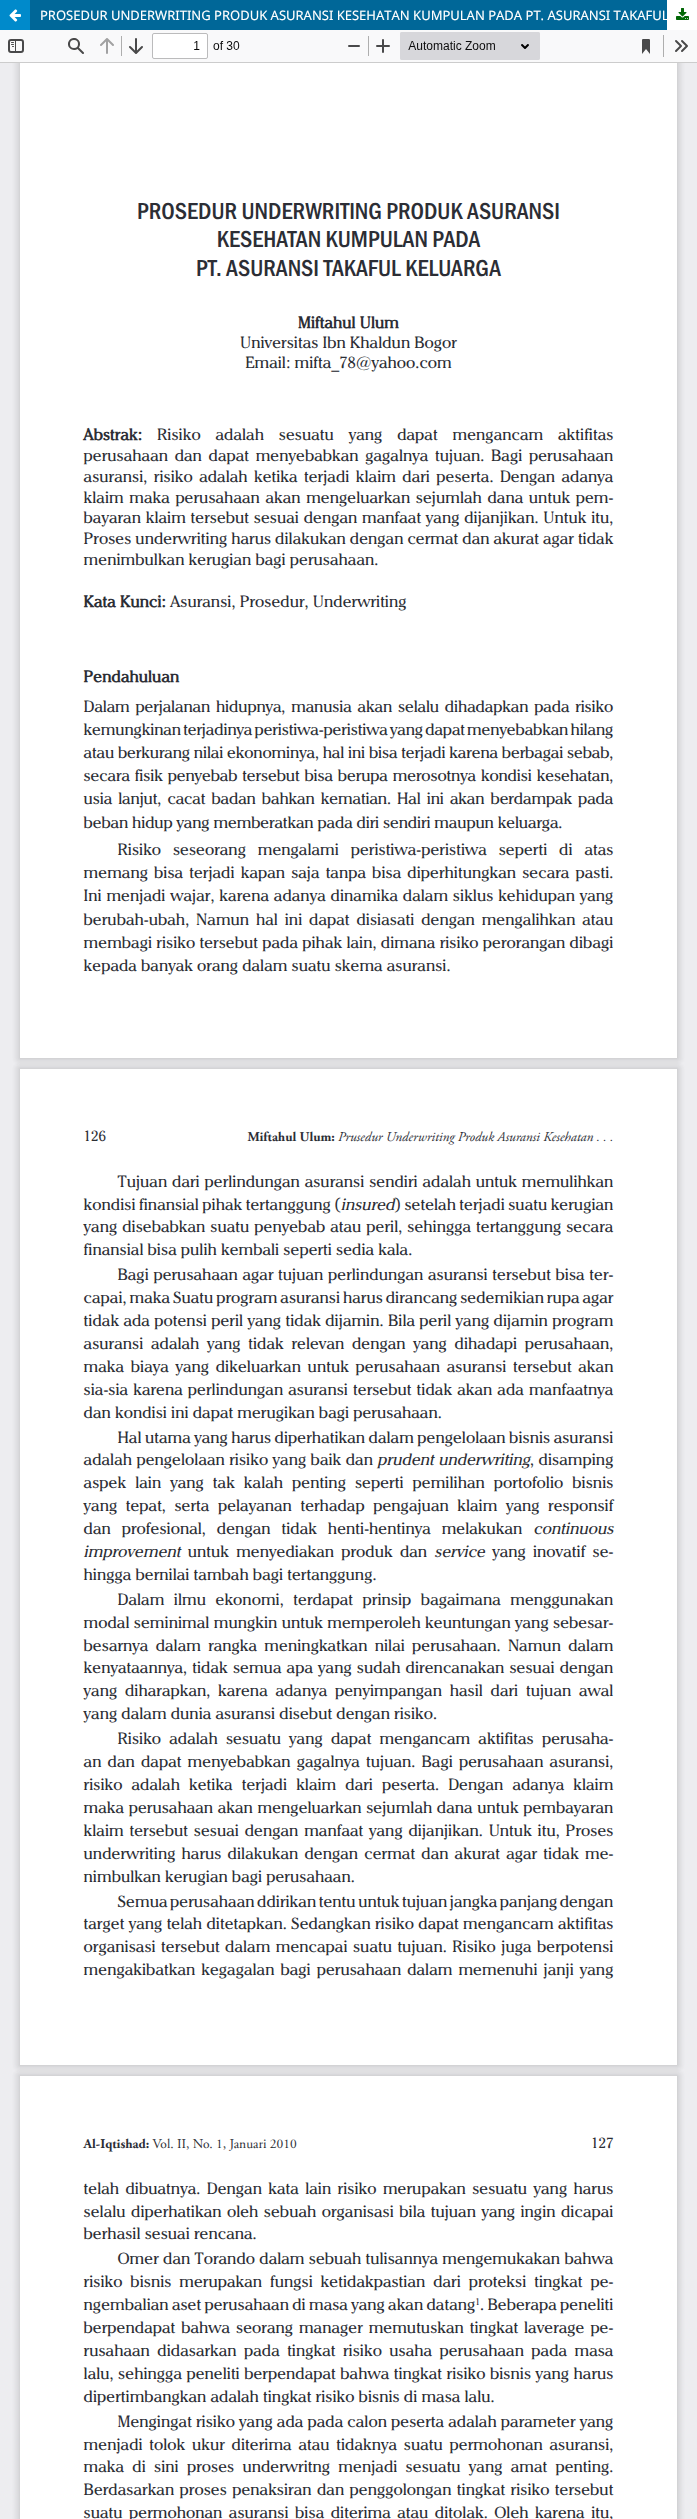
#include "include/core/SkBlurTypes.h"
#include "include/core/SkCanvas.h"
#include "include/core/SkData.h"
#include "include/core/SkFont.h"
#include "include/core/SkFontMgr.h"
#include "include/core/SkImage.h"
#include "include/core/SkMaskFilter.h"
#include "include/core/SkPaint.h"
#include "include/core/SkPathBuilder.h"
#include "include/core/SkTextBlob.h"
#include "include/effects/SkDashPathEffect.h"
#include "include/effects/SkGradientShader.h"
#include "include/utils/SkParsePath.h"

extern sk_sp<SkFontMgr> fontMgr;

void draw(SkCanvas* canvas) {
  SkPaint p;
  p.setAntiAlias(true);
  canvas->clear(SK_ColorWHITE);
  p.setColor(SkColorSetRGB(0, 103, 152));
  canvas->drawRect(SkRect::MakeLTRB(30, 0, 667, 30), p);
  p.setColor(SkColorSetRGB(0, 138, 203));
  canvas->drawRect(SkRect::MakeLTRB(0, 0, 30, 30), p);
  canvas->drawImageRect(SkImages::DeferredFromEncodedData(SkData::MakeFromFileName("images/1.png")), SkRect::MakeLTRB(9, 9, 21, 22), SkSamplingOptions());
  canvas->drawImageRect(SkImages::DeferredFromEncodedData(SkData::MakeFromFileName("images/2.png")), SkRect::MakeLTRB(676, 8, 689, 20), SkSamplingOptions());
  canvas->drawImageRect(SkImages::DeferredFromEncodedData(SkData::MakeFromFileName("images/3.png")), SkRect::MakeLTRB(0, 30, 697, 2519), SkSamplingOptions());
  SkFont font1(fontMgr->matchFamilyStyle("Noto Sans", SkFontStyle::Normal()), 13);
  font1.setSubpixel(true);
  p.setColor(SK_ColorWHITE);
  canvas->drawString("PROSEDUR UNDERWRITING PRODUK ASURANSI KESEHATAN KUMPULAN PADA PT. ASURANSI TAKAFUL", 40, 20, font1, p);
}
